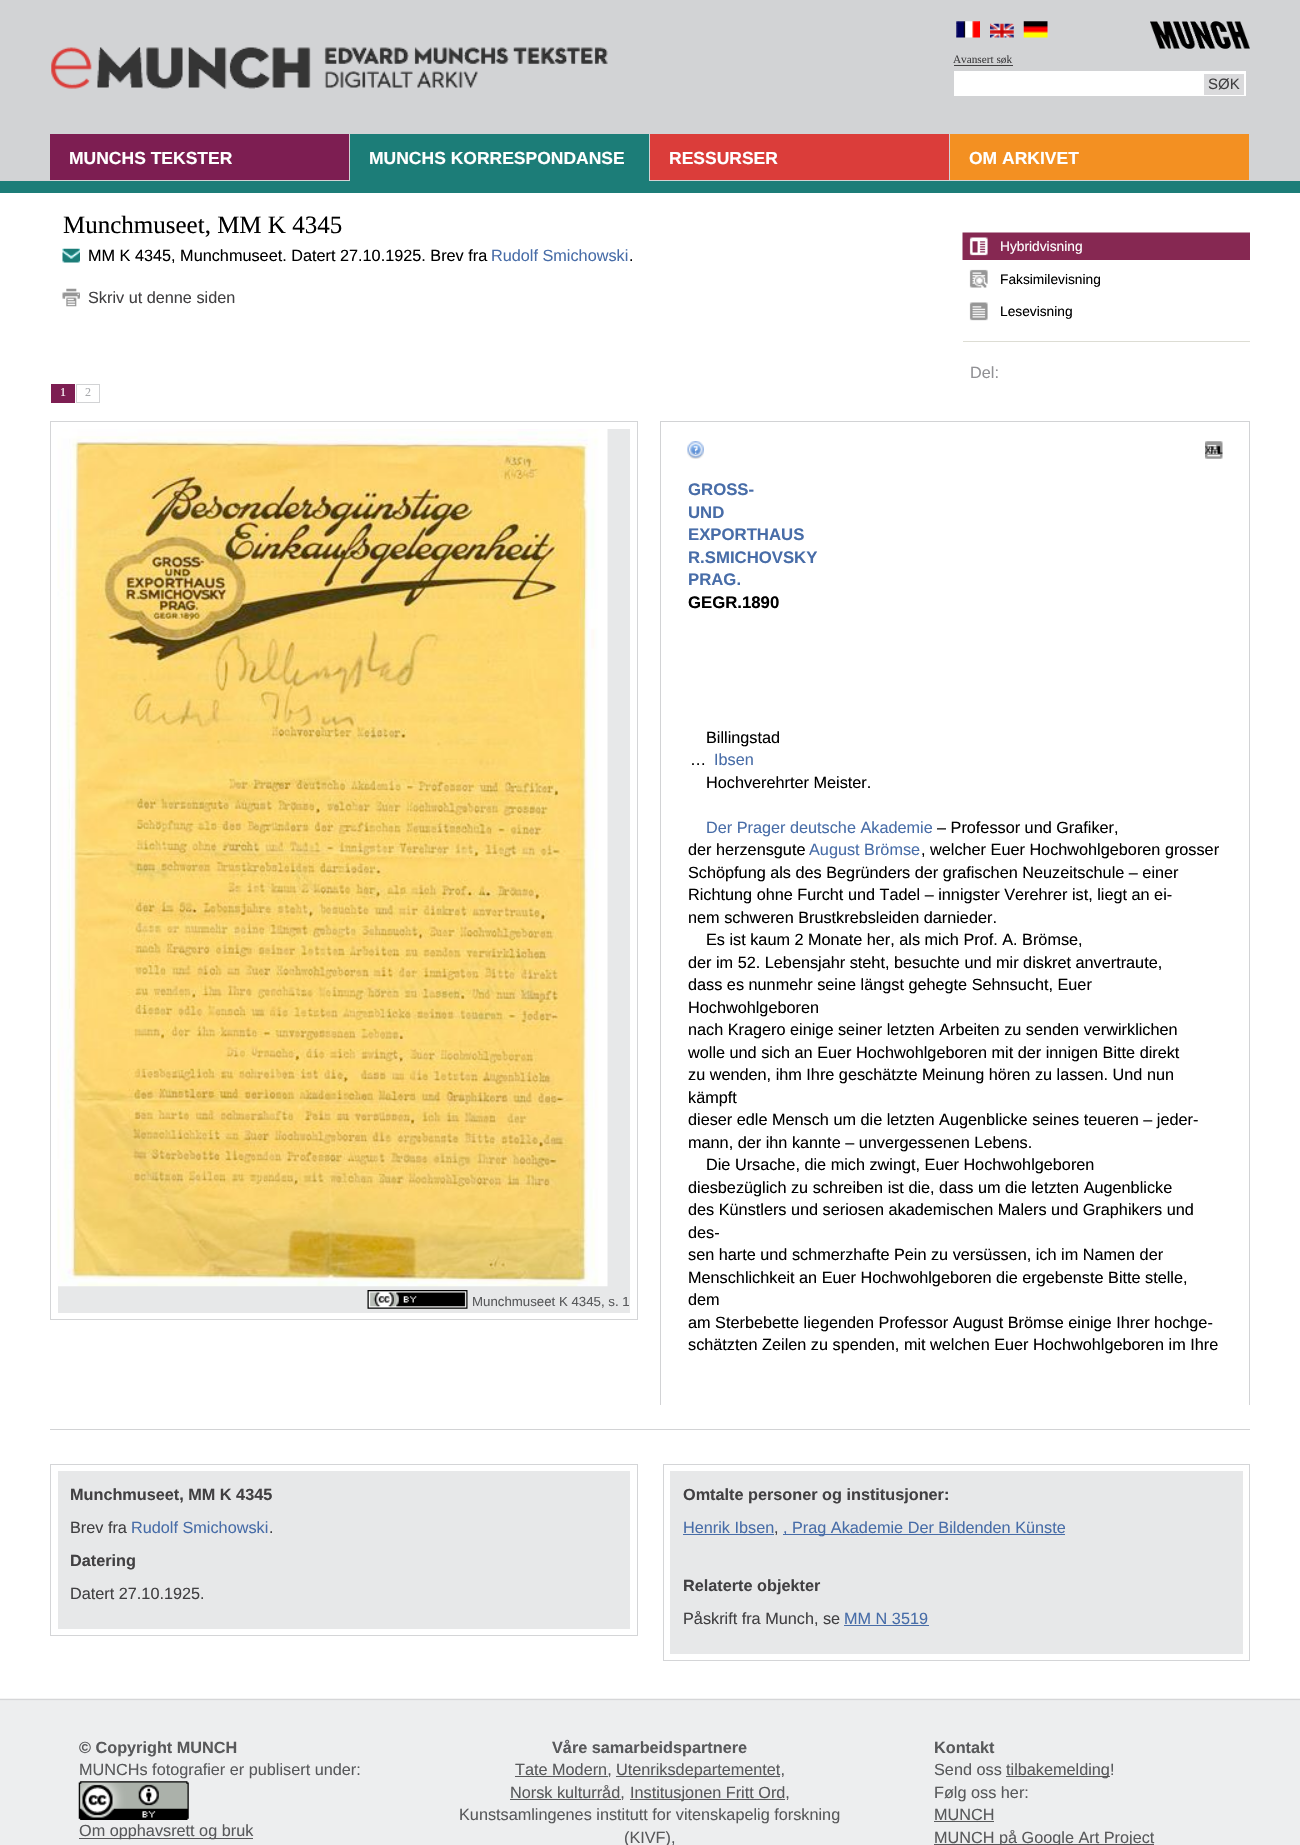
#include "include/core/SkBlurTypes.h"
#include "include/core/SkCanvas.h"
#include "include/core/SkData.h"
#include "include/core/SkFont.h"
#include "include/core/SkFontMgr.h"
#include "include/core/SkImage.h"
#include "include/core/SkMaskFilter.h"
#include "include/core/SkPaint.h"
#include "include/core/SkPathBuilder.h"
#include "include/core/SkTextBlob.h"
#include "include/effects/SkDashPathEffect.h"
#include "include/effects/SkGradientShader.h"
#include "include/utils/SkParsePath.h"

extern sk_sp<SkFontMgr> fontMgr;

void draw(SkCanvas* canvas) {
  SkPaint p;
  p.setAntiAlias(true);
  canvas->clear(SK_ColorWHITE);
  p.setColor(SkColorSetRGB(210, 211, 213));
  canvas->drawRect(SkRect::MakeLTRB(0, 0, 1300, 181), p);
  canvas->drawImageRect(SkImages::DeferredFromEncodedData(SkData::MakeFromFileName("images/1.png")), SkRect::MakeLTRB(51, 47, 608, 89), SkSamplingOptions());
  canvas->drawImageRect(SkImages::DeferredFromEncodedData(SkData::MakeFromFileName("images/2.png")), SkRect::MakeLTRB(956, 21, 980, 38), SkSamplingOptions());
  canvas->drawImageRect(SkImages::DeferredFromEncodedData(SkData::MakeFromFileName("images/3.png")), SkRect::MakeLTRB(990, 23, 1014, 38), SkSamplingOptions());
  canvas->drawImageRect(SkImages::DeferredFromEncodedData(SkData::MakeFromFileName("images/4.png")), SkRect::MakeLTRB(1023, 21, 1048, 38), SkSamplingOptions());
  canvas->drawImageRect(SkImages::DeferredFromEncodedData(SkData::MakeFromFileName("images/5.png")), SkRect::MakeLTRB(1150, 21, 1250, 49), SkSamplingOptions());
  p.setColor(SkColorSetRGB(65, 64, 66));
  canvas->drawRect(SkRect::MakeLTRB(954, 65, 1013, 66), p);
  p.setColor(SK_ColorWHITE);
  canvas->drawRect(SkRect::MakeLTRB(954, 71, 1246, 96), p);
  p.setColor(SkColorSetRGB(218, 218, 220));
  canvas->drawRect(SkRect::MakeLTRB(1204, 74, 1244, 95), p);
  p.setColor(SkColorSetRGB(28, 125, 120));
  canvas->drawRect(SkRect::MakeLTRB(0, 181, 1300, 193), p);
  p.setColor(SkColorSetRGB(125, 30, 82));
  canvas->drawRect(SkRect::MakeLTRB(50, 134, 349, 180), p);
  p.setColor(SkColorSetRGB(28, 125, 120));
  canvas->drawRect(SkRect::MakeLTRB(350, 134, 649, 181), p);
  p.setColor(SkColorSetRGB(219, 61, 58));
  canvas->drawRect(SkRect::MakeLTRB(650, 134, 949, 180), p);
  p.setColor(SkColorSetRGB(243, 144, 34));
  canvas->drawRect(SkRect::MakeLTRB(950, 134, 1249, 180), p);
  canvas->drawImageRect(SkImages::DeferredFromEncodedData(SkData::MakeFromFileName("images/6.png")), SkRect::MakeLTRB(62, 248, 80, 263), SkSamplingOptions());
  canvas->drawImageRect(SkImages::DeferredFromEncodedData(SkData::MakeFromFileName("images/7.png")), SkRect::MakeLTRB(62, 288, 80, 307), SkSamplingOptions());
  canvas->drawImageRect(SkImages::DeferredFromEncodedData(SkData::MakeFromFileName("images/8.png")), SkRect::MakeLTRB(962, 232, 1250, 260), SkSamplingOptions());
  canvas->drawImageRect(SkImages::DeferredFromEncodedData(SkData::MakeFromFileName("images/9.png")), SkRect::MakeLTRB(969, 269, 988, 288), SkSamplingOptions());
  canvas->drawImageRect(SkImages::DeferredFromEncodedData(SkData::MakeFromFileName("images/10.png")), SkRect::MakeLTRB(969, 302, 988, 321), SkSamplingOptions());
  p.setColor(SkColorSetRGB(221, 221, 212));
  canvas->drawRect(SkRect::MakeLTRB(963, 341, 1250, 342), p);
  p.setColor(SkColorSetRGB(125, 30, 82));
  canvas->drawRect(SkRect::MakeLTRB(51, 384, 75, 403), p);
  p.setStyle(SkPaint::kStroke_Style);
  p.setStrokeWidth(1);
  p.setColor(SkColorSetRGB(210, 211, 213));
  canvas->drawRect(SkRect::MakeLTRB(76.5f, 384.5f, 99.5f, 402.5f), p);
  p.setColor(SkColorSetRGB(212, 213, 215));
  canvas->drawRect(SkRect::MakeLTRB(50.5f, 421.5f, 637.5f, 1319.5f), p);
  p.setStyle(SkPaint::kFill_Style);
  p.setColor(SkColorSetRGB(231, 232, 233));
  canvas->drawRect(SkRect::MakeLTRB(58, 429, 630, 1313), p);
  canvas->drawImageRect(SkImages::DeferredFromEncodedData(SkData::MakeFromFileName("images/11.png")), SkRect::MakeLTRB(57, 429, 608, 1287), SkSamplingOptions());
  canvas->drawImageRect(SkImages::DeferredFromEncodedData(SkData::MakeFromFileName("images/12.png")), SkRect::MakeLTRB(367, 1290, 468, 1309), SkSamplingOptions());
  p.setColor(SkColorSetRGB(210, 211, 213));
  canvas->drawRect(SkRect::MakeLTRB(660, 421, 1250, 422), p);
  canvas->drawRect(SkRect::MakeLTRB(1249, 421, 1250, 1405), p);
  canvas->drawRect(SkRect::MakeLTRB(660, 421, 661, 1405), p);
  canvas->drawImageRect(SkImages::DeferredFromEncodedData(SkData::MakeFromFileName("images/13.png")), SkRect::MakeLTRB(687, 441, 704, 459), SkSamplingOptions());
  canvas->drawImageRect(SkImages::DeferredFromEncodedData(SkData::MakeFromFileName("images/14.png")), SkRect::MakeLTRB(1205, 441, 1223, 459), SkSamplingOptions());
  canvas->drawRect(SkRect::MakeLTRB(50, 1429, 1250, 1430), p);
  p.setStyle(SkPaint::kStroke_Style);
  p.setColor(SkColorSetRGB(212, 213, 215));
  canvas->drawRect(SkRect::MakeLTRB(50.5f, 1464.5f, 637.5f, 1635.5f), p);
  p.setStyle(SkPaint::kFill_Style);
  p.setColor(SkColorSetRGB(231, 232, 233));
  canvas->drawRect(SkRect::MakeLTRB(58, 1471, 630, 1629), p);
  p.setStyle(SkPaint::kStroke_Style);
  p.setColor(SkColorSetRGB(212, 213, 215));
  canvas->drawRect(SkRect::MakeLTRB(663.5f, 1464.5f, 1249.5f, 1660.5f), p);
  p.setStyle(SkPaint::kFill_Style);
  p.setColor(SkColorSetRGB(231, 232, 233));
  canvas->drawRect(SkRect::MakeLTRB(670, 1471, 1243, 1654), p);
  p.setColor(SkColorSetRGB(72, 109, 168));
  canvas->drawRect(SkRect::MakeLTRB(683, 1534, 774, 1535), p);
  canvas->drawRect(SkRect::MakeLTRB(783, 1534, 1065, 1535), p);
  canvas->drawRect(SkRect::MakeLTRB(844, 1625, 929, 1626), p);
  canvas->drawImageRect(SkImages::DeferredFromEncodedData(SkData::MakeFromFileName("images/15.png")), SkRect::MakeLTRB(0, 1698, 1300, 1845), SkSamplingOptions());
  canvas->drawImageRect(SkImages::DeferredFromEncodedData(SkData::MakeFromFileName("images/16.png")), SkRect::MakeLTRB(78, 1781, 189, 1820), SkSamplingOptions());
  p.setColor(SkColorSetRGB(88, 89, 91));
  canvas->drawRect(SkRect::MakeLTRB(79, 1838, 253, 1839), p);
  canvas->drawRect(SkRect::MakeLTRB(515, 1776, 608, 1777), p);
  canvas->drawRect(SkRect::MakeLTRB(616, 1776, 780, 1777), p);
  canvas->drawRect(SkRect::MakeLTRB(510, 1799, 621, 1800), p);
  canvas->drawRect(SkRect::MakeLTRB(630, 1799, 785, 1800), p);
  canvas->drawRect(SkRect::MakeLTRB(1006, 1776, 1110, 1777), p);
  canvas->drawRect(SkRect::MakeLTRB(934, 1821, 994, 1822), p);
  canvas->drawRect(SkRect::MakeLTRB(934, 1844, 1154, 1845), p);
  SkFont font1(fontMgr->matchFamilyStyle("Liberation Serif", SkFontStyle::Normal()), 11.25f);
  font1.setSubpixel(true);
  p.setColor(SkColorSetRGB(65, 64, 66));
  canvas->drawString("Avansert søk", 953, 63, font1, p);
  SkFont font2(fontMgr->matchFamilyStyle("Liberation Sans", SkFontStyle::Normal()), 15);
  font2.setSubpixel(true);
  canvas->drawString("SØK", 1208, 89, font2, p);
  SkFont font3(fontMgr->matchFamilyStyle("Liberation Sans", SkFontStyle::Bold()), 17.5f);
  font3.setSubpixel(true);
  p.setColor(SK_ColorWHITE);
  canvas->drawString("MUNCHS TEKSTER", 69, 164, font3, p);
  canvas->drawString("MUNCHS KORRESPONDANSE", 369, 164, font3, p);
  canvas->drawString("RESSURSER", 669, 164, font3, p);
  canvas->drawString("OM ARKIVET", 969, 164, font3, p);
  SkFont font4(fontMgr->matchFamilyStyle("Liberation Serif", SkFontStyle::Normal()), 25);
  font4.setSubpixel(true);
  p.setColor(SK_ColorBLACK);
  canvas->drawString("Munchmuseet, MM K 4345", 63, 233, font4, p);
  SkFont font5(fontMgr->matchFamilyStyle("Liberation Sans", SkFontStyle::Normal()), 16.25f);
  font5.setSubpixel(true);
  canvas->drawString("MM K 4345, Munchmuseet. Datert 27.10.1925. Brev fra", 88, 261, font5, p);
  p.setColor(SkColorSetRGB(72, 109, 168));
  canvas->drawString("Rudolf Smichowski", 491, 261, font5, p);
  p.setColor(SK_ColorBLACK);
  canvas->drawString(".", 629, 261, font5, p);
  p.setColor(SkColorSetRGB(65, 64, 66));
  canvas->drawString("Skriv ut denne siden", 88, 303, font5, p);
  SkFont font6(fontMgr->matchFamilyStyle("Liberation Sans", SkFontStyle::Normal()), 13.75f);
  font6.setSubpixel(true);
  p.setColor(SK_ColorWHITE);
  canvas->drawString("Hybridvisning", 1000, 251, font6, p);
  p.setColor(SK_ColorBLACK);
  canvas->drawString("Faksimilevisning", 1000, 284, font6, p);
  canvas->drawString("Lesevisning", 1000, 316, font6, p);
  p.setColor(SkColorSetRGB(145, 145, 149));
  canvas->drawString("Del:", 970, 378, font5, p);
  SkFont font7(fontMgr->matchFamilyStyle("Liberation Serif", SkFontStyle::Normal()), 12);
  font7.setSubpixel(true);
  p.setColor(SK_ColorWHITE);
  canvas->drawString("1", 60, 396, font7, p);
  p.setColor(SkColorSetRGB(167, 169, 172));
  canvas->drawString("2", 85, 396, font7, p);
  SkFont font8(fontMgr->matchFamilyStyle("Liberation Sans", SkFontStyle::Normal()), 13.25f);
  font8.setSubpixel(true);
  p.setColor(SkColorSetRGB(88, 89, 91));
  canvas->drawString("Munchmuseet K 4345, s. 1", 472, 1306, font8, p);
  SkFont font9(fontMgr->matchFamilyStyle("Liberation Sans", SkFontStyle::Bold()), 16.75f);
  font9.setSubpixel(true);
  p.setColor(SkColorSetRGB(72, 109, 168));
  canvas->drawString("GROSS-", 688, 495, font9, p);
  canvas->drawString("UND", 688, 518, font9, p);
  canvas->drawString("EXPORTHAUS", 688, 540, font9, p);
  canvas->drawString("R.SMICHOVSKY", 688, 563, font9, p);
  canvas->drawString("PRAG.", 688, 585, font9, p);
  p.setColor(SK_ColorBLACK);
  canvas->drawString("GEGR.1890", 688, 608, font9, p);
  canvas->drawString("Billingstad", 706, 743, font5, p);
  canvas->drawString("…", 690, 765, font5, p);
  p.setColor(SkColorSetRGB(72, 109, 168));
  canvas->drawString("Ibsen", 714, 765, font5, p);
  p.setColor(SK_ColorBLACK);
  canvas->drawString("Hochverehrter Meister.", 706, 788, font5, p);
  p.setColor(SkColorSetRGB(72, 109, 168));
  canvas->drawString("Der Prager deutsche Akademie", 706, 833, font5, p);
  p.setColor(SK_ColorBLACK);
  canvas->drawString("– Professor und Grafiker,", 937, 833, font5, p);
  canvas->drawString("der herzensgute", 688, 855, font5, p);
  p.setColor(SkColorSetRGB(72, 109, 168));
  canvas->drawString("August Brömse", 809, 855, font5, p);
  p.setColor(SK_ColorBLACK);
  canvas->drawString(", welcher Euer Hochwohlgeboren grosser", 921, 855, font5, p);
  canvas->drawString("Schöpfung als des Begründers der grafischen Neuzeitschule – einer", 688, 878, font5, p);
  canvas->drawString("Richtung ohne Furcht und Tadel – innigster Verehrer ist, liegt an ei-", 688, 900, font5, p);
  canvas->drawString("nem schweren Brustkrebsleiden darnieder.", 688, 923, font5, p);
  canvas->drawString("Es ist kaum 2 Monate her, als mich Prof. A. Brömse,", 706, 945, font5, p);
  canvas->drawString("der im 52. Lebensjahr steht, besuchte und mir diskret anvertraute,", 688, 968, font5, p);
  canvas->drawString("dass es nunmehr seine längst gehegte Sehnsucht, Euer", 688, 990, font5, p);
  canvas->drawString("Hochwohlgeboren", 688, 1013, font5, p);
  canvas->drawString("nach Kragero einige seiner letzten Arbeiten zu senden verwirklichen", 688, 1035, font5, p);
  canvas->drawString("wolle und sich an Euer Hochwohlgeboren mit der innigen Bitte direkt", 688, 1058, font5, p);
  canvas->drawString("zu wenden, ihm Ihre geschätzte Meinung hören zu lassen. Und nun", 688, 1080, font5, p);
  canvas->drawString("kämpft", 688, 1103, font5, p);
  canvas->drawString("dieser edle Mensch um die letzten Augenblicke seines teueren – jeder-", 688, 1125, font5, p);
  canvas->drawString("mann, der ihn kannte – unvergessenen Lebens.", 688, 1148, font5, p);
  canvas->drawString("Die Ursache, die mich zwingt, Euer Hochwohlgeboren", 706, 1170, font5, p);
  canvas->drawString("diesbezüglich zu schreiben ist die, dass um die letzten Augenblicke", 688, 1193, font5, p);
  canvas->drawString("des Künstlers und seriosen akademischen Malers und Graphikers und", 688, 1215, font5, p);
  canvas->drawString("des-", 688, 1238, font5, p);
  canvas->drawString("sen harte und schmerzhafte Pein zu versüssen, ich im Namen der", 688, 1260, font5, p);
  canvas->drawString("Menschlichkeit an Euer Hochwohlgeboren die ergebenste Bitte stelle,", 688, 1283, font5, p);
  canvas->drawString("dem", 688, 1305, font5, p);
  canvas->drawString("am Sterbebette liegenden Professor August Brömse einige Ihrer hochge-", 688, 1328, font5, p);
  canvas->drawString("schätzten Zeilen zu spenden, mit welchen Euer Hochwohlgeboren im Ihre", 688, 1350, font5, p);
  SkFont font10(fontMgr->matchFamilyStyle("Liberation Sans", SkFontStyle::Bold()), 16.25f);
  font10.setSubpixel(true);
  p.setColor(SkColorSetRGB(65, 64, 66));
  canvas->drawString("Munchmuseet, MM K 4345", 70, 1500, font10, p);
  canvas->drawString("Brev fra", 70, 1533, font5, p);
  p.setColor(SkColorSetRGB(72, 109, 168));
  canvas->drawString("Rudolf Smichowski", 131, 1533, font5, p);
  p.setColor(SkColorSetRGB(65, 64, 66));
  canvas->drawString(".", 269, 1533, font5, p);
  canvas->drawString("Datering", 70, 1566, font10, p);
  canvas->drawString("Datert 27.10.1925.", 70, 1599, font5, p);
  canvas->drawString("Omtalte personer og institusjoner:", 683, 1500, font10, p);
  p.setColor(SkColorSetRGB(72, 109, 168));
  canvas->drawString("Henrik Ibsen", 683, 1533, font5, p);
  p.setColor(SkColorSetRGB(65, 64, 66));
  canvas->drawString(",", 774, 1533, font5, p);
  p.setColor(SkColorSetRGB(72, 109, 168));
  canvas->drawString(", Prag Akademie Der Bildenden Künste", 783, 1533, font5, p);
  p.setColor(SkColorSetRGB(65, 64, 66));
  canvas->drawString("Relaterte objekter", 683, 1591, font10, p);
  canvas->drawString("Påskrift fra Munch, se", 683, 1624, font5, p);
  p.setColor(SkColorSetRGB(72, 109, 168));
  canvas->drawString("MM N 3519", 844, 1624, font5, p);
  p.setColor(SkColorSetRGB(88, 89, 91));
  canvas->drawString("© Copyright MUNCH", 79, 1753, font10, p);
  canvas->drawString("MUNCHs fotografier er publisert under:", 79, 1775, font5, p);
  canvas->drawString("Om opphavsrett og bruk", 79, 1836, font5, p);
  canvas->drawString("Våre samarbeidspartnere", 552, 1753, font10, p);
  canvas->drawString("Tate Modern,", 515, 1775, font5, p);
  canvas->drawString("Utenriksdepartementet,", 616, 1775, font5, p);
  canvas->drawString("Norsk kulturråd,", 510, 1798, font5, p);
  canvas->drawString("Institusjonen Fritt Ord,", 630, 1798, font5, p);
  canvas->drawString("Kunstsamlingenes institutt for vitenskapelig forskning", 459, 1820, font5, p);
  canvas->drawString("(KIVF),", 624, 1843, font5, p);
  canvas->drawString("Kontakt", 934, 1753, font10, p);
  canvas->drawString("Send oss", 934, 1775, font5, p);
  canvas->drawString("tilbakemelding!", 1006, 1775, font5, p);
  canvas->drawString("Følg oss her:", 934, 1798, font5, p);
  canvas->drawString("MUNCH", 934, 1820, font5, p);
  canvas->drawString("MUNCH på Google Art Project", 934, 1843, font5, p);
}
